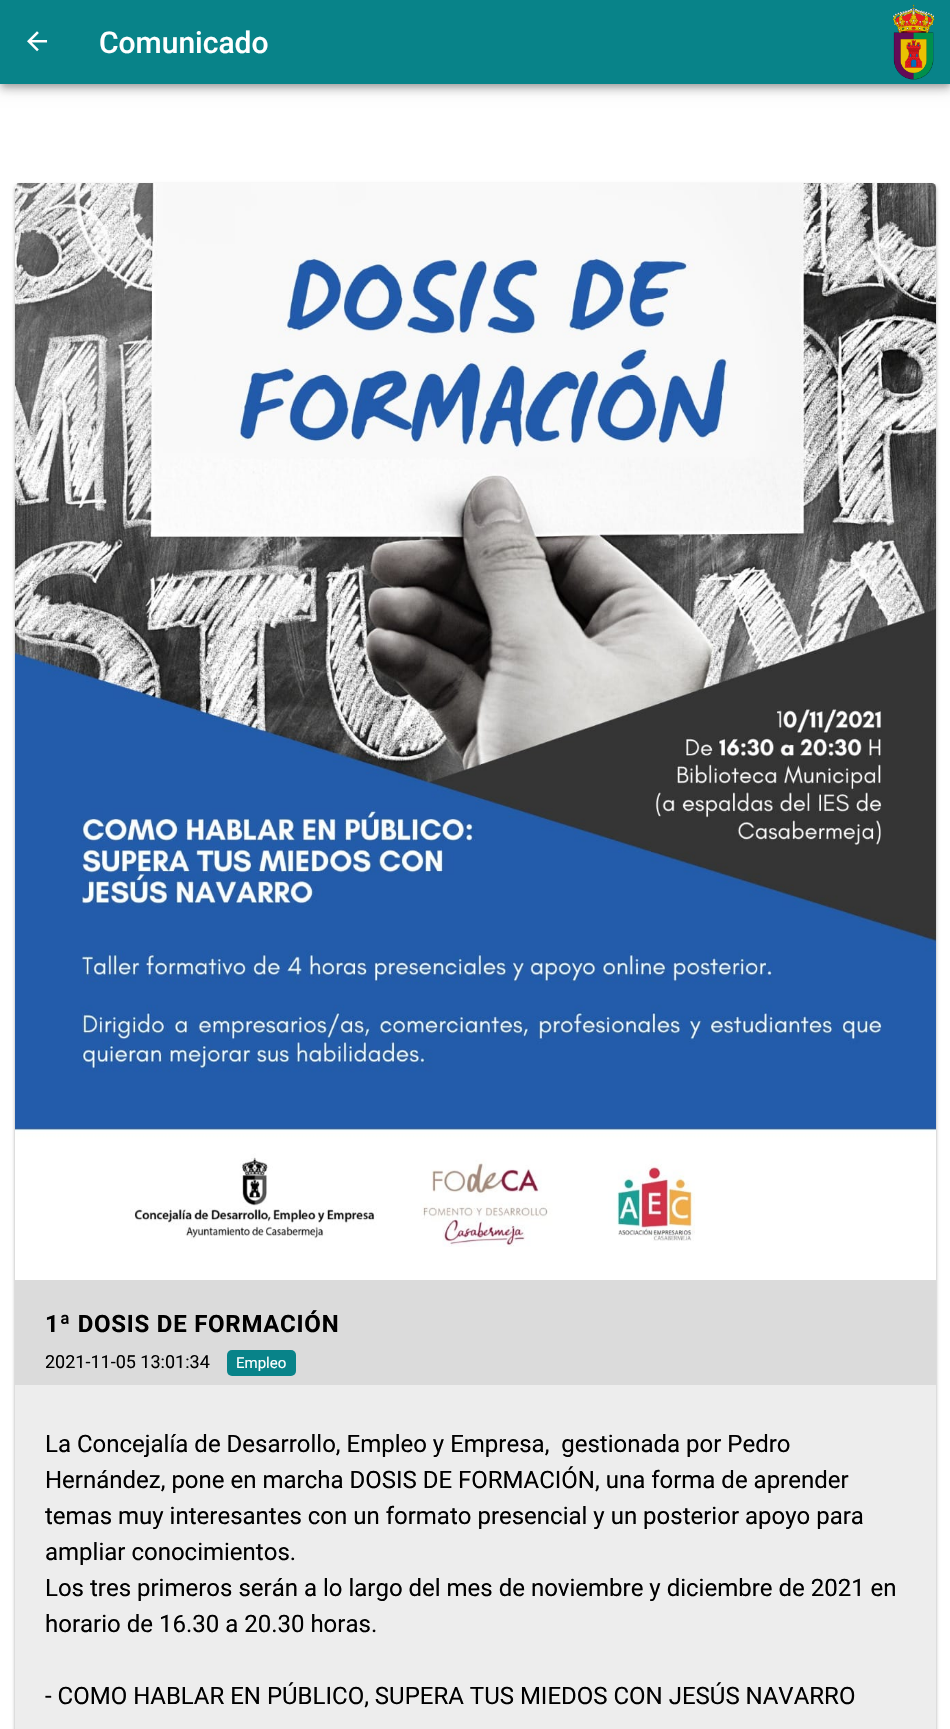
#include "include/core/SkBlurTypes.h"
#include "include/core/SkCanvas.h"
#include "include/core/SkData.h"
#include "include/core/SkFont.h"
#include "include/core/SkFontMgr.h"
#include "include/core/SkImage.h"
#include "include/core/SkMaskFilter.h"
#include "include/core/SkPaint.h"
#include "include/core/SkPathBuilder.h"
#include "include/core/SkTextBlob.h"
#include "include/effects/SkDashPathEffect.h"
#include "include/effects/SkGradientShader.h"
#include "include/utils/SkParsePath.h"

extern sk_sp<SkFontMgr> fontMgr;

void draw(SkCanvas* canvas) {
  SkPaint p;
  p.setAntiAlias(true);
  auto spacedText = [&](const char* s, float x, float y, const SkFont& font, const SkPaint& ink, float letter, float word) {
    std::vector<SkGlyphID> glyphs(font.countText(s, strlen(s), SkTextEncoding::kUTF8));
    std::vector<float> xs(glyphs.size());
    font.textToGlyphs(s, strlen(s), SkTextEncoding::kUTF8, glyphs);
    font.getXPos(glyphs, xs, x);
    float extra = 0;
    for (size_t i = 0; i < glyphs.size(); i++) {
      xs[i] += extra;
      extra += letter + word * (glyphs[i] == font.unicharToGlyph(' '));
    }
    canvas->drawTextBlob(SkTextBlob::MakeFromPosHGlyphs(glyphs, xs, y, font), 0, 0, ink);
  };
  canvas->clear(SK_ColorWHITE);
  p.setColor(SkColorSetARGB(31, 0, 0, 0));
  p.setMaskFilter(SkMaskFilter::MakeBlur(kNormal_SkBlurStyle, 7.5f));
  canvas->drawRect(SkRect::MakeLTRB(0, 2, 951, 86), p);
  p.setMaskFilter(nullptr);
  p.setColor(SkColorSetARGB(36, 0, 0, 0));
  p.setMaskFilter(SkMaskFilter::MakeBlur(kNormal_SkBlurStyle, 4));
  canvas->drawRect(SkRect::MakeLTRB(0, 6, 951, 90), p);
  p.setMaskFilter(nullptr);
  p.setColor(SkColorSetARGB(51, 0, 0, 0));
  p.setMaskFilter(SkMaskFilter::MakeBlur(kNormal_SkBlurStyle, 3));
  canvas->drawRect(SkRect::MakeLTRB(2, 5, 950, 86), p);
  p.setMaskFilter(nullptr);
  p.setColor(SkColorSetRGB(8, 131, 137));
  canvas->drawRect(SkRect::MakeLTRB(0, 0, 950, 84), p);
  canvas->drawImageRect(SkImages::DeferredFromEncodedData(SkData::MakeFromFileName("images/1.png")), SkRect::MakeLTRB(27, 31, 48, 52), SkSamplingOptions());
  canvas->drawImageRect(SkImages::DeferredFromEncodedData(SkData::MakeFromFileName("images/2.png")), SkRect::MakeLTRB(892, 4, 935, 80), SkSamplingOptions());
  canvas->save();
  canvas->clipPath(SkPathBuilder(SkPathFillType::kEvenOdd).moveTo(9, 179).lineTo(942, 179).lineTo(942, 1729).lineTo(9, 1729).close().moveTo(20, 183).lineTo(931, 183).cubicTo(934, 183, 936, 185, 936, 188).lineTo(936, 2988).cubicTo(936, 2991, 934, 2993, 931, 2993).lineTo(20, 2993).cubicTo(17, 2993, 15, 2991, 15, 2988).lineTo(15, 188).cubicTo(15, 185, 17, 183, 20, 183).close().detach(), true);
  p.setColor(SkColorSetARGB(61, 0, 0, 0));
  p.setMaskFilter(SkMaskFilter::MakeBlur(kNormal_SkBlurStyle, 1.5f));
  canvas->drawRoundRect(SkRect::MakeLTRB(15, 185, 936, 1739), 5, 5, p);
  p.setMaskFilter(nullptr);
  canvas->restore();
  canvas->save();
  canvas->clipPath(SkPathBuilder(SkPathFillType::kEvenOdd).moveTo(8, 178).lineTo(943, 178).lineTo(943, 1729).lineTo(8, 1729).close().moveTo(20, 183).lineTo(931, 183).cubicTo(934, 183, 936, 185, 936, 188).lineTo(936, 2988).cubicTo(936, 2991, 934, 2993, 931, 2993).lineTo(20, 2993).cubicTo(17, 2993, 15, 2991, 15, 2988).lineTo(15, 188).cubicTo(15, 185, 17, 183, 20, 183).close().detach(), true);
  p.setColor(SkColorSetARGB(31, 0, 0, 0));
  p.setMaskFilter(SkMaskFilter::MakeBlur(kNormal_SkBlurStyle, 2));
  canvas->drawRoundRect(SkRect::MakeLTRB(15, 185, 936, 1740), 5, 5, p);
  p.setMaskFilter(nullptr);
  canvas->restore();
  canvas->drawImageRect(SkImages::DeferredFromEncodedData(SkData::MakeFromFileName("images/3.png")), SkRect::MakeLTRB(15, 183, 936, 1247), SkSamplingOptions());
  p.setColor(SkColorSetRGB(237, 237, 237));
  canvas->drawRect(SkRect::MakeLTRB(15, 1385, 936, 1729), p);
  p.setColor(SkColorSetRGB(219, 219, 219));
  canvas->drawRect(SkRect::MakeLTRB(15, 1280, 936, 1385), p);
  p.setColor(SkColorSetRGB(8, 131, 137));
  canvas->drawRoundRect(SkRect::MakeLTRB(227, 1350, 296, 1376), 5, 5, p);
  SkFont font1(fontMgr->matchFamilyStyle("Roboto", SkFontStyle(500, SkFontStyle::kNormal_Width, SkFontStyle::kUpright_Slant)), 30);
  font1.setSubpixel(true);
  p.setColor(SK_ColorWHITE);
  canvas->drawString("Comunicado", 99, 53, font1, p);
  SkFont font2(fontMgr->matchFamilyStyle("Roboto", SkFontStyle::Bold()), 24);
  font2.setSubpixel(true);
  p.setColor(SK_ColorBLACK);
  spacedText("1ª DOSIS DE FORMACIÓN", 45, 1332, font2, p, 0.75f, 0);
  SkFont font3(fontMgr->matchFamilyStyle("Roboto", SkFontStyle::Normal()), 18);
  font3.setSubpixel(true);
  canvas->drawString("2021-11-05 13:01:34", 45, 1368, font3, p);
  SkFont font4(fontMgr->matchFamilyStyle("Roboto", SkFontStyle::Normal()), 15);
  font4.setSubpixel(true);
  p.setColor(SK_ColorWHITE);
  canvas->drawString("Empleo", 236, 1368, font4, p);
  SkFont font5(fontMgr->matchFamilyStyle("Roboto", SkFontStyle::Normal()), 24);
  font5.setSubpixel(true);
  p.setColor(SK_ColorBLACK);
  canvas->drawString("La Concejalía de Desarrollo, Empleo y Empresa,  gestionada por Pedro", 45, 1452, font5, p);
  canvas->drawString("Hernández, pone en marcha DOSIS DE FORMACIÓN, una forma de aprender", 45, 1488, font5, p);
  canvas->drawString("temas muy interesantes con un formato presencial y un posterior apoyo para", 45, 1524, font5, p);
  canvas->drawString("ampliar conocimientos.", 45, 1560, font5, p);
  canvas->drawString("Los tres primeros serán a lo largo del mes de noviembre y diciembre de 2021 en", 45, 1596, font5, p);
  canvas->drawString("horario de 16.30 a 20.30 horas.", 45, 1632, font5, p);
  canvas->drawString("- COMO HABLAR EN PÚBLICO, SUPERA TUS MIEDOS CON JESÚS NAVARRO", 45, 1704, font5, p);
}
